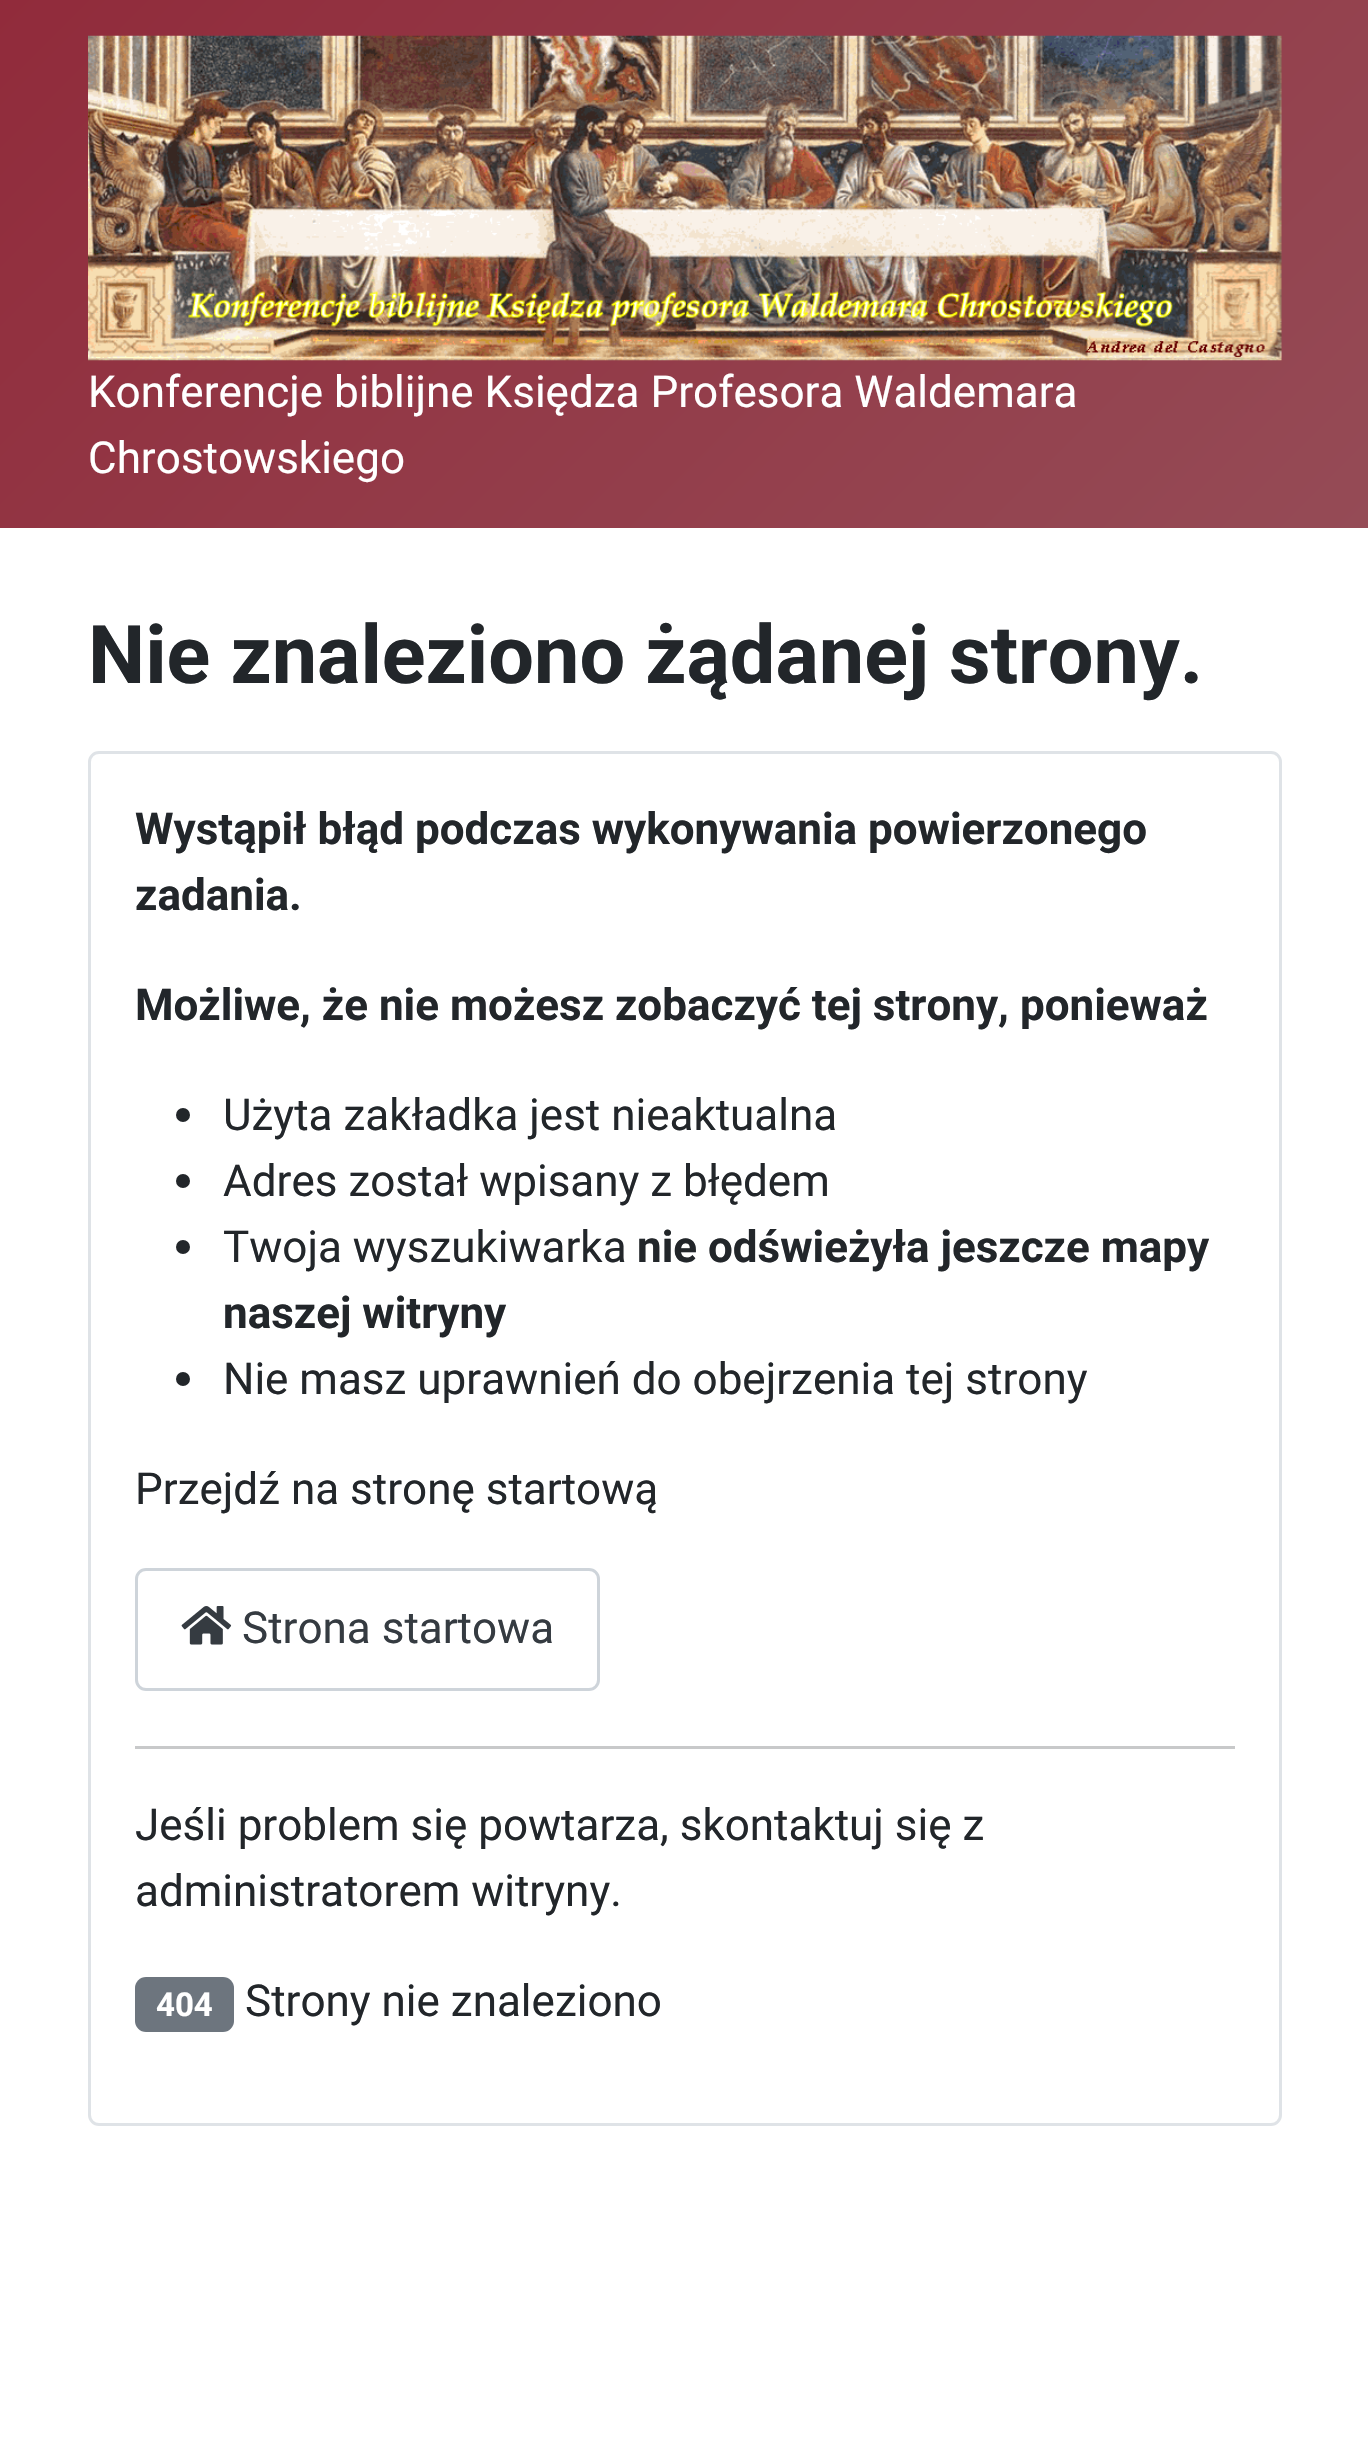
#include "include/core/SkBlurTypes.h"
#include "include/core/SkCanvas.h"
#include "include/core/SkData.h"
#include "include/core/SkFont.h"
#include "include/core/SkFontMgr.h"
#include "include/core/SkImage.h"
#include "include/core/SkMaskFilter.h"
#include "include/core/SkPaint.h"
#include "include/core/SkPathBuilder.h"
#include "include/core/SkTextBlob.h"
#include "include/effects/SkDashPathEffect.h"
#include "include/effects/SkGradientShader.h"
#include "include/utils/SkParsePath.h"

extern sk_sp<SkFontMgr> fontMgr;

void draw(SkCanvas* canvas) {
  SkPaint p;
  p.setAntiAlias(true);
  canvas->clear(SK_ColorWHITE);
  {
    const SkColor colors[] = {SkColorSetRGB(145, 43, 59), SkColorSetRGB(149, 75, 86)};
    const float stops[] = {0, 1};
    const SkPoint ends[] = {{210, -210}, {1159, 738}};
    p.setShader(SkGradientShader::MakeLinear(ends, colors, stops, 2, SkTileMode::kClamp));
    p.setAlpha(255);
  }
  canvas->drawRect(SkRect::MakeLTRB(0, 0, 1368, 528), p);
  canvas->drawImageRect(SkImages::DeferredFromEncodedData(SkData::MakeFromFileName("images/1.png")), SkRect::MakeLTRB(88, 35, 1282, 361), SkSamplingOptions());
  p.setStyle(SkPaint::kStroke_Style);
  p.setStrokeWidth(3);
  p.setShader(nullptr);
  p.setColor(SkColorSetRGB(223, 227, 231));
  canvas->drawRoundRect(SkRect::MakeLTRB(89.5f, 752.5f, 1280.5f, 2124.5f), 9.5f, 9.5f, p);
  p.setStyle(SkPaint::kFill_Style);
  p.setColor(SkColorSetRGB(34, 38, 42));
  canvas->drawCircle(183, 1115, 7, p);
  canvas->drawCircle(183, 1181, 7, p);
  canvas->drawCircle(183, 1247, 7, p);
  canvas->drawCircle(183, 1379, 7, p);
  p.setStyle(SkPaint::kStroke_Style);
  p.setColor(SkColorSetRGB(206, 212, 218));
  canvas->drawRoundRect(SkRect::MakeLTRB(136.5f, 1569.5f, 598.5f, 1689.5f), 9.5f, 9.5f, p);
  canvas->drawImageRect(SkImages::DeferredFromEncodedData(SkData::MakeFromFileName("images/2.png")), SkRect::MakeLTRB(181, 1606, 232, 1645), SkSamplingOptions());
  p.setStyle(SkPaint::kFill_Style);
  p.setColor(SkColorSetRGB(200, 201, 202));
  canvas->drawRect(SkRect::MakeLTRB(135, 1746, 1235, 1749), p);
  p.setColor(SkColorSetRGB(109, 117, 126));
  canvas->drawRoundRect(SkRect::MakeLTRB(135, 1977, 234, 2032), 11, 11, p);
  SkFont font1(fontMgr->matchFamilyStyle("Roboto", SkFontStyle::Normal()), 44);
  font1.setSubpixel(true);
  p.setColor(SK_ColorWHITE);
  canvas->drawString("Konferencje biblijne Księdza Profesora Waldemara", 88, 407, font1, p);
  canvas->drawString("Chrostowskiego", 88, 473, font1, p);
  SkFont font2(fontMgr->matchFamilyStyle("Roboto", SkFontStyle::Bold()), 81);
  font2.setSubpixel(true);
  p.setColor(SkColorSetRGB(34, 38, 42));
  canvas->drawString("Nie znaleziono żądanej strony.", 88, 683, font2, p);
  SkFont font3(fontMgr->matchFamilyStyle("Roboto", SkFontStyle::Bold()), 44);
  font3.setSubpixel(true);
  canvas->drawString("Wystąpił błąd podczas wykonywania powierzonego", 135, 844, font3, p);
  canvas->drawString("zadania.", 135, 910, font3, p);
  canvas->drawString("Możliwe, że nie możesz zobaczyć tej strony, ponieważ", 135, 1020, font3, p);
  canvas->drawString("Użyta zakładka jest nieaktualna", 223, 1130, font1, p);
  canvas->drawString("Adres został wpisany z błędem", 223, 1196, font1, p);
  canvas->drawString("Twoja wyszukiwarka", 223, 1262, font1, p);
  canvas->drawString("nie odświeżyła jeszcze mapy", 637, 1262, font3, p);
  canvas->drawString("naszej witryny", 223, 1328, font3, p);
  canvas->drawString("Nie masz uprawnień do obejrzenia tej strony", 223, 1394, font1, p);
  canvas->drawString("Przejdź na stronę startową", 135, 1504, font1, p);
  p.setColor(SkColorSetRGB(53, 59, 65));
  canvas->drawString("Strona startowa", 242, 1643, font1, p);
  p.setColor(SkColorSetRGB(34, 38, 42));
  canvas->drawString("Jeśli problem się powtarza, skontaktuj się z", 135, 1840, font1, p);
  canvas->drawString("administratorem witryny.", 135, 1906, font1, p);
  SkFont font4(fontMgr->matchFamilyStyle("Roboto", SkFontStyle::Bold()), 33);
  font4.setSubpixel(true);
  p.setColor(SK_ColorWHITE);
  canvas->drawString("404", 156, 2016, font4, p);
  p.setColor(SkColorSetRGB(34, 38, 42));
  canvas->drawString("Strony nie znaleziono", 245, 2016, font1, p);
}
